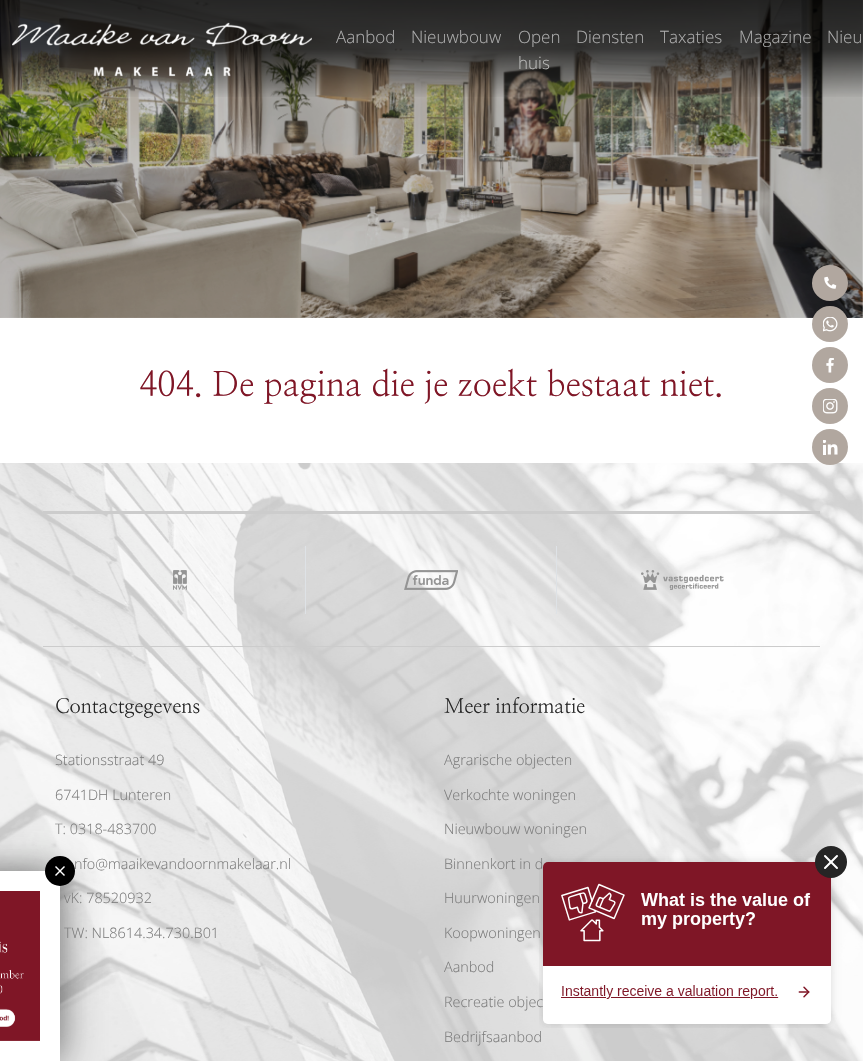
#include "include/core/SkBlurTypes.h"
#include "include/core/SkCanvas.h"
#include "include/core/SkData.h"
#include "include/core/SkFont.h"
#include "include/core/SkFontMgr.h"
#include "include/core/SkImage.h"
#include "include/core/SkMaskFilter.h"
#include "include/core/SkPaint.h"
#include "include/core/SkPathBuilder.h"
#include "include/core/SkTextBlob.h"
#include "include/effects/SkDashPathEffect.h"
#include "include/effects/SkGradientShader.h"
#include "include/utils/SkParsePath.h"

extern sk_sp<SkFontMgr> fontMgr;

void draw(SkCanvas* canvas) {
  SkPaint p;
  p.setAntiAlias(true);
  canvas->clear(SK_ColorWHITE);
  canvas->drawImageRect(SkImages::DeferredFromEncodedData(SkData::MakeFromFileName("images/1.png")), SkRect::MakeLTRB(0, 0, 863, 318), SkSamplingOptions());
  {
    const SkColor colors[] = {SkColorSetARGB(204, 0, 0, 0), SkColorSetARGB(179, 0, 0, 0), SkColorSetARGB(0, 0, 0, 0)};
    const float stops[] = {0, 0.5f, 1};
    const SkPoint ends[] = {{432, 0}, {432, 99}};
    p.setShader(SkGradientShader::MakeLinear(ends, colors, stops, 3, SkTileMode::kClamp));
    p.setAlpha(255);
  }
  canvas->drawRect(SkRect::MakeLTRB(0, 0, 863, 97), p);
  canvas->drawImageRect(SkImages::DeferredFromEncodedData(SkData::MakeFromFileName("images/2.png")), SkRect::MakeLTRB(12, 22, 312, 77), SkSamplingOptions());
  p.setShader(nullptr);
  p.setColor(SkColorSetRGB(177, 167, 159));
  canvas->drawCircle(830, 283, 18, p);
  canvas->drawImageRect(SkImages::DeferredFromEncodedData(SkData::MakeFromFileName("images/3.png")), SkRect::MakeLTRB(824, 276, 837, 289), SkSamplingOptions());
  canvas->drawCircle(830, 324, 18, p);
  canvas->drawImageRect(SkImages::DeferredFromEncodedData(SkData::MakeFromFileName("images/4.png")), SkRect::MakeLTRB(823, 317, 838, 332), SkSamplingOptions());
  canvas->drawCircle(830, 365, 18, p);
  canvas->drawImageRect(SkImages::DeferredFromEncodedData(SkData::MakeFromFileName("images/5.png")), SkRect::MakeLTRB(826, 358, 834, 373), SkSamplingOptions());
  canvas->drawCircle(830, 406, 18, p);
  canvas->drawImageRect(SkImages::DeferredFromEncodedData(SkData::MakeFromFileName("images/6.png")), SkRect::MakeLTRB(823, 399, 838, 414), SkSamplingOptions());
  canvas->drawImageRect(SkImages::DeferredFromEncodedData(SkData::MakeFromFileName("images/8.png")), SkRect::MakeLTRB(0, 463, 863, 1061), SkSamplingOptions());
  canvas->drawCircle(830, 447, 18, p);
  canvas->drawImageRect(SkImages::DeferredFromEncodedData(SkData::MakeFromFileName("images/7.png")), SkRect::MakeLTRB(823, 440, 838, 455), SkSamplingOptions());
  p.setColor(SkColorSetRGB(204, 204, 204));
  canvas->drawRect(SkRect::MakeLTRB(43, 511, 820, 514), p);
  canvas->drawRect(SkRect::MakeLTRB(43, 646, 820, 647), p);
  p.setColor(SkColorSetRGB(222, 226, 230));
  canvas->drawRect(SkRect::MakeLTRB(305, 546, 306, 614), p);
  canvas->drawImageRect(SkImages::DeferredFromEncodedData(SkData::MakeFromFileName("images/9.png")), SkRect::MakeLTRB(173, 570, 187, 590), SkSamplingOptions());
  canvas->drawRect(SkRect::MakeLTRB(556, 546, 557, 614), p);
  canvas->drawImageRect(SkImages::DeferredFromEncodedData(SkData::MakeFromFileName("images/10.png")), SkRect::MakeLTRB(404, 570, 458, 590), SkSamplingOptions());
  canvas->drawImageRect(SkImages::DeferredFromEncodedData(SkData::MakeFromFileName("images/11.png")), SkRect::MakeLTRB(641, 570, 724, 590), SkSamplingOptions());
  p.setColor(SkColorSetARGB(128, 0, 0, 0));
  p.setMaskFilter(SkMaskFilter::MakeBlur(kNormal_SkBlurStyle, 20));
  canvas->drawRect(SkRect::MakeLTRB(-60, 871, 60, 1061), p);
  p.setMaskFilter(nullptr);
  p.setColor(SkColorSetARGB(26, 0, 0, 0));
  p.setMaskFilter(SkMaskFilter::MakeBlur(kNormal_SkBlurStyle, 15));
  canvas->drawRect(SkRect::MakeLTRB(-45, 871, 60, 1061), p);
  p.setMaskFilter(nullptr);
  p.setColor(SK_ColorWHITE);
  canvas->drawRect(SkRect::MakeLTRB(0, 871, 60, 1061), p);
  canvas->drawImageRect(SkImages::DeferredFromEncodedData(SkData::MakeFromFileName("images/12.png")), SkRect::MakeLTRB(0, 891, 40, 1041), SkSamplingOptions());
  SkFont font1(fontMgr->matchFamilyStyle("Open Sans", SkFontStyle(300, SkFontStyle::kNormal_Width, SkFontStyle::kUpright_Slant)), 17);
  font1.setSubpixel(true);
  p.setColor(SkColorSetRGB(172, 172, 172));
  canvas->drawString("Aanbod", 336, 43, font1, p);
  canvas->drawString("Nieuwbouw", 411, 43, font1, p);
  canvas->drawString("Open", 518, 43, font1, p);
  p.setColor(SkColorSetRGB(185, 185, 184));
  canvas->drawString("huis", 518, 69, font1, p);
  p.setColor(SkColorSetRGB(172, 172, 172));
  canvas->drawString("Diensten", 576, 43, font1, p);
  canvas->drawString("Taxaties", 660, 43, font1, p);
  canvas->drawString("Magazine", 739, 43, font1, p);
  canvas->drawString("Nieu", 827, 43, font1, p);
  SkFont font2(fontMgr->matchFamilyStyle("NanumMyeongjo", SkFontStyle::Normal()), 34);
  font2.setSubpixel(true);
  p.setColor(SkColorSetRGB(127, 22, 38));
  canvas->drawString("404. De pagina die je zoekt bestaat niet.", 139, 396, font2, p);
  SkFont font3(fontMgr->matchFamilyStyle("NanumMyeongjo", SkFontStyle::Normal()), 20);
  font3.setSubpixel(true);
  p.setColor(SkColorSetRGB(37, 37, 37));
  canvas->drawString("Contactgegevens", 55, 713, font3, p);
  SkFont font4(fontMgr->matchFamilyStyle("Open Sans", SkFontStyle(300, SkFontStyle::kNormal_Width, SkFontStyle::kUpright_Slant)), 14.4f);
  font4.setSubpixel(true);
  p.setColor(SkColorSetRGB(124, 124, 124));
  canvas->drawString("Stationsstraat 49", 55, 765, font4, p);
  canvas->drawString("6741DH Lunteren", 55, 800, font4, p);
  canvas->drawString("T: 0318-483700", 55, 834, font4, p);
  canvas->drawString("nfo@maaikevandoornmakelaar.nl", 74, 869, font4, p);
  canvas->drawString("vK: 78520932", 64, 903, font4, p);
  canvas->drawString("TW: NL8614.34.730.B01", 64, 938, font4, p);
  p.setColor(SkColorSetRGB(37, 37, 37));
  canvas->drawString("Meer informatie", 444, 713, font3, p);
  p.setColor(SkColorSetRGB(124, 124, 124));
  canvas->drawString("Agrarische objecten", 444, 765, font4, p);
  canvas->drawString("Verkochte woningen", 444, 800, font4, p);
  canvas->drawString("Nieuwbouw woningen", 444, 834, font4, p);
  canvas->drawString("Binnenkort in d", 444, 869, font4, p);
  canvas->drawString("Huurwoningen", 444, 903, font4, p);
  canvas->drawString("Koopwoningen", 444, 938, font4, p);
  canvas->drawString("Aanbod", 444, 972, font4, p);
  canvas->drawString("Recreatie objec", 444, 1007, font4, p);
  canvas->drawString("Bedrijfsaanbod", 444, 1042, font4, p);
  p.setColor(SK_ColorBLACK);
  canvas->drawCircle(60, 871, 15, p);
  p.setColor(SK_ColorWHITE);
  canvas->drawPath(SkPathBuilder().moveTo(55, 875).lineTo(64, 866).lineTo(65, 867).lineTo(56, 876).close().detach(), p);
  canvas->drawPath(SkPathBuilder().moveTo(56, 866).lineTo(65, 875).lineTo(64, 876).lineTo(55, 867).close().detach(), p);
  canvas->drawImageRect(SkImages::DeferredFromEncodedData(SkData::MakeFromFileName("images/13.png")), SkRect::MakeLTRB(539, 846, 847, 1028), SkSamplingOptions());
}
